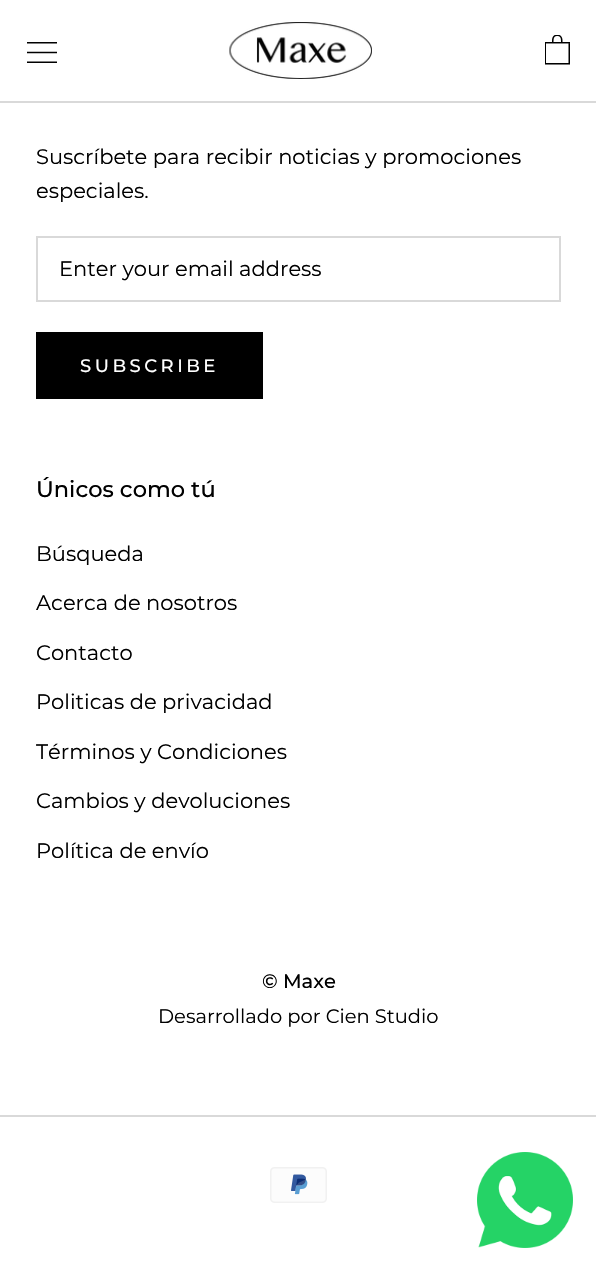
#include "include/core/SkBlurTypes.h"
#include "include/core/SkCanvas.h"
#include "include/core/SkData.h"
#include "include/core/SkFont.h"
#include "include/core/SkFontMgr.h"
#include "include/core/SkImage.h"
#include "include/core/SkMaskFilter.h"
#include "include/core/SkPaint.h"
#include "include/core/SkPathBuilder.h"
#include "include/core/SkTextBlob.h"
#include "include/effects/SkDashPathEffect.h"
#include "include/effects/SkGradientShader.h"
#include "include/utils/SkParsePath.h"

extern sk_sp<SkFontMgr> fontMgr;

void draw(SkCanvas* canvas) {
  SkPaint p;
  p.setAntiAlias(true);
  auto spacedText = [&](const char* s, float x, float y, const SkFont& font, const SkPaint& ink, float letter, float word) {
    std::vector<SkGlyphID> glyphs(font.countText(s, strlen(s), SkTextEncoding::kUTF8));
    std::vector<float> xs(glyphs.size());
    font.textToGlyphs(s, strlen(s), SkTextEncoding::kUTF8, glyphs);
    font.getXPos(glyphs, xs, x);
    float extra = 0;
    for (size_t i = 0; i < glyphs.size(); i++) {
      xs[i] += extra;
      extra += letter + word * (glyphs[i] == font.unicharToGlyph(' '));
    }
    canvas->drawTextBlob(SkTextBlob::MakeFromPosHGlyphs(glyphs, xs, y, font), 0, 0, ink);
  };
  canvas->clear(SK_ColorWHITE);
  p.setColor(SkColorSetRGB(217, 217, 217));
  canvas->drawRect(SkRect::MakeLTRB(0, 101, 596, 103), p);
  canvas->drawImageRect(SkImages::DeferredFromEncodedData(SkData::MakeFromFileName("images/1.png")), SkRect::MakeLTRB(27, 42, 57, 63), SkSamplingOptions());
  canvas->drawImageRect(SkImages::DeferredFromEncodedData(SkData::MakeFromFileName("images/2.png")), SkRect::MakeLTRB(229, 22, 372, 79), SkSamplingOptions());
  canvas->drawImageRect(SkImages::DeferredFromEncodedData(SkData::MakeFromFileName("images/3.png")), SkRect::MakeLTRB(545, 35, 570, 65), SkSamplingOptions());
  p.setStyle(SkPaint::kStroke_Style);
  p.setStrokeWidth(2);
  canvas->drawRect(SkRect::MakeLTRB(37, 237, 560, 301), p);
  p.setColor(SK_ColorBLACK);
  canvas->drawRect(SkRect::MakeLTRB(37, 333, 262, 398), p);
  p.setStyle(SkPaint::kFill_Style);
  canvas->drawRect(SkRect::MakeLTRB(38, 334, 261, 397), p);
  p.setColor(SkColorSetRGB(217, 217, 217));
  canvas->drawRect(SkRect::MakeLTRB(0, 1115, 596, 1117), p);
  canvas->drawImageRect(SkImages::DeferredFromEncodedData(SkData::MakeFromFileName("images/4.png")), SkRect::MakeLTRB(270, 1167, 327, 1203), SkSamplingOptions());
  canvas->drawImageRect(SkImages::DeferredFromEncodedData(SkData::MakeFromFileName("images/5.png")), SkRect::MakeLTRB(477, 1152, 573, 1248), SkSamplingOptions());
  SkFont font1(fontMgr->matchFamilyStyle("Montserrat", SkFontStyle::Normal()), 21);
  font1.setSubpixel(true);
  p.setColor(SK_ColorBLACK);
  canvas->drawString("Suscríbete para recibir noticias y promociones", 36, 164, font1, p);
  canvas->drawString("especiales.", 36, 198, font1, p);
  canvas->drawString("Enter your email address", 59, 276, font1, p);
  SkFont font2(fontMgr->matchFamilyStyle("Montserrat", SkFontStyle(500, SkFontStyle::kNormal_Width, SkFontStyle::kUpright_Slant)), 18);
  font2.setSubpixel(true);
  p.setColor(SK_ColorWHITE);
  spacedText("SUBSCRIBE", 80, 372, font2, p, 3.5f, 0);
  SkFont font3(fontMgr->matchFamilyStyle("Montserrat", SkFontStyle(500, SkFontStyle::kNormal_Width, SkFontStyle::kUpright_Slant)), 22.5f);
  font3.setSubpixel(true);
  p.setColor(SK_ColorBLACK);
  canvas->drawString("Únicos como tú", 36, 497, font3, p);
  canvas->drawString("Búsqueda", 36, 561, font1, p);
  canvas->drawString("Acerca de nosotros", 36, 610, font1, p);
  canvas->drawString("Contacto", 36, 660, font1, p);
  canvas->drawString("Politicas de privacidad", 36, 709, font1, p);
  canvas->drawString("Términos y Condiciones", 36, 759, font1, p);
  canvas->drawString("Cambios y devoluciones", 36, 808, font1, p);
  canvas->drawString("Política de envío", 36, 858, font1, p);
  SkFont font4(fontMgr->matchFamilyStyle("Montserrat", SkFontStyle(500, SkFontStyle::kNormal_Width, SkFontStyle::kUpright_Slant)), 19.5f);
  font4.setSubpixel(true);
  canvas->drawString("© Maxe", 262, 988, font4, p);
  SkFont font5(fontMgr->matchFamilyStyle("Montserrat", SkFontStyle::Normal()), 19.5f);
  font5.setSubpixel(true);
  canvas->drawString("Desarrollado por Cien Studio", 158, 1023, font5, p);
}
